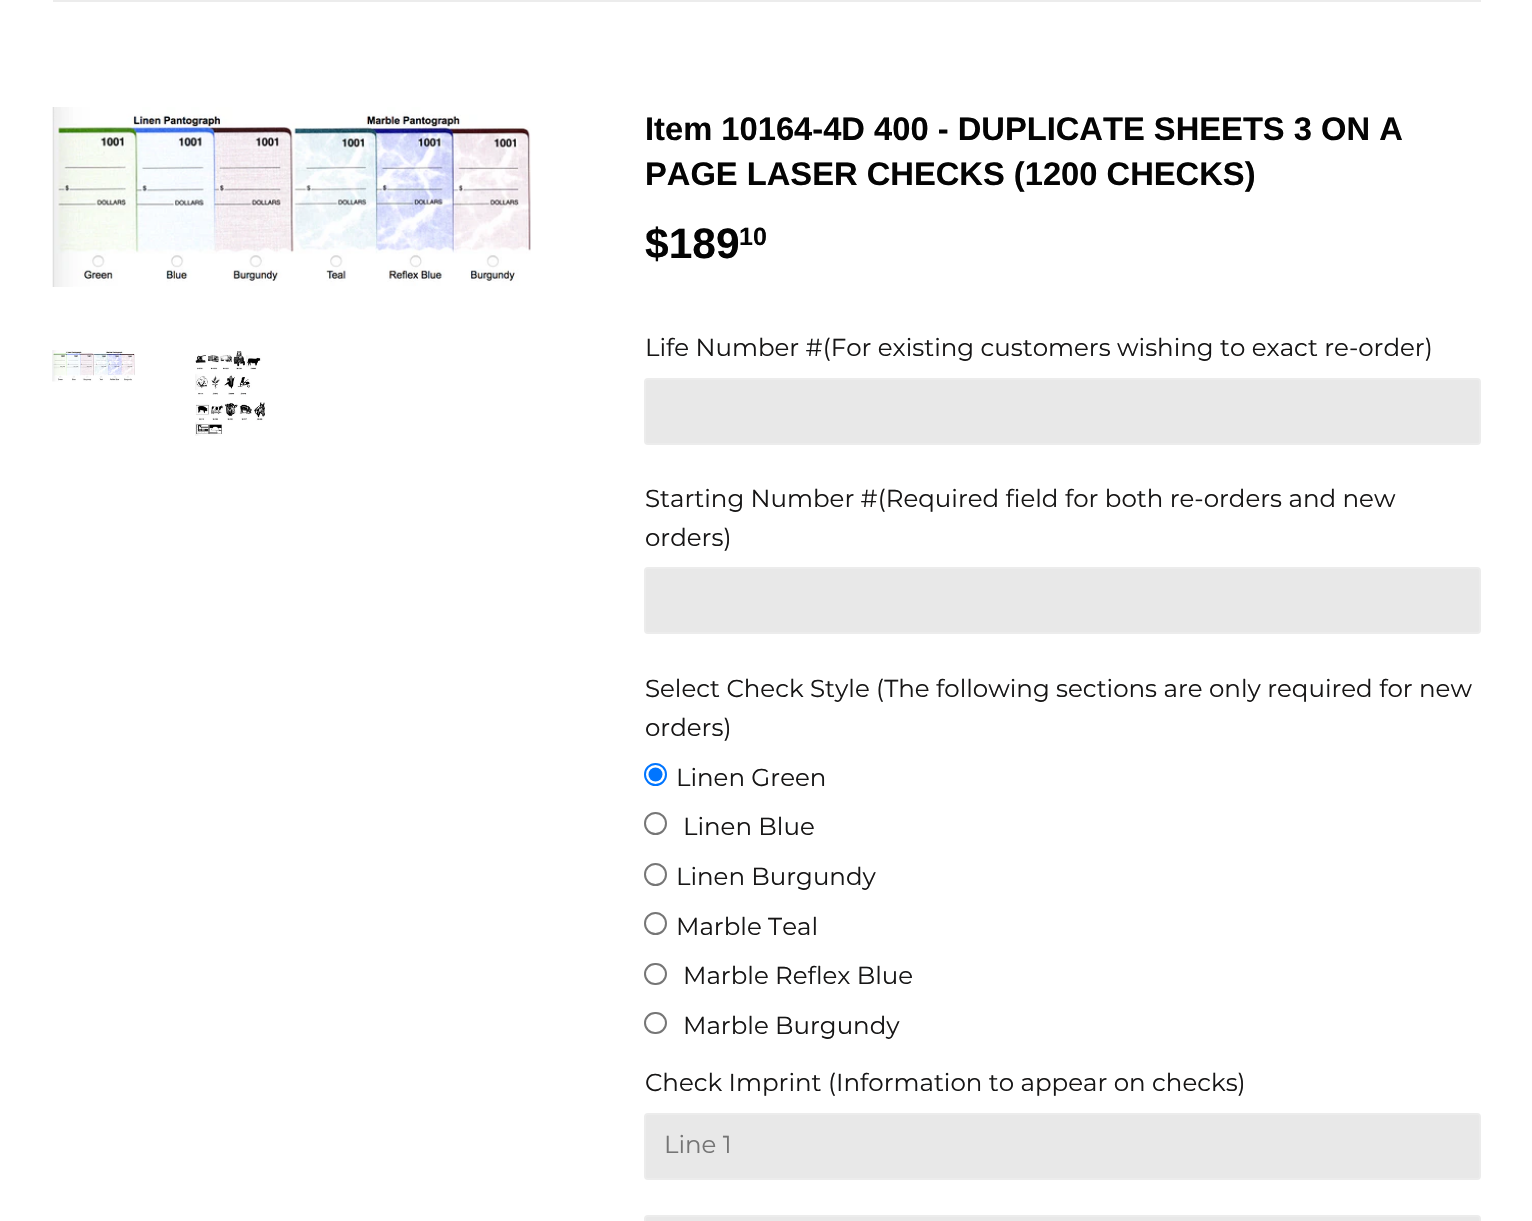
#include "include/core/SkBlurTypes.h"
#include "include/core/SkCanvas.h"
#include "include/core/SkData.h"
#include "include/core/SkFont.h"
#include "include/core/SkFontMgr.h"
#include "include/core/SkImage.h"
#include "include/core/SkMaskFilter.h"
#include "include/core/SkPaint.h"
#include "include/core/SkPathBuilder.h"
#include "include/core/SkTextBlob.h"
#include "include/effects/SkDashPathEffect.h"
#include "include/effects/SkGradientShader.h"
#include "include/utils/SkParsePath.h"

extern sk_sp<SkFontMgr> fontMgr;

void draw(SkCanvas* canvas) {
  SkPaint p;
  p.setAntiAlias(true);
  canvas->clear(SK_ColorWHITE);
  p.setColor(SkColorSetRGB(236, 236, 236));
  canvas->drawRect(SkRect::MakeLTRB(53, 0, 1481, 2), p);
  canvas->drawImageRect(SkImages::DeferredFromEncodedData(SkData::MakeFromFileName("images/1.png")), SkRect::MakeLTRB(52, 107, 531, 287), SkSamplingOptions());
  canvas->drawImageRect(SkImages::DeferredFromEncodedData(SkData::MakeFromFileName("images/2.png")), SkRect::MakeLTRB(52, 350, 135, 382), SkSamplingOptions());
  canvas->drawImageRect(SkImages::DeferredFromEncodedData(SkData::MakeFromFileName("images/3.png")), SkRect::MakeLTRB(195, 351, 265, 436), SkSamplingOptions());
  p.setColor(SkColorSetRGB(232, 232, 232));
  canvas->drawRoundRect(SkRect::MakeLTRB(645, 379, 1480, 444), 3, 3, p);
  p.setStyle(SkPaint::kStroke_Style);
  p.setStrokeWidth(2);
  p.setColor(SkColorSetRGB(236, 236, 236));
  canvas->drawRoundRect(SkRect::MakeLTRB(645, 379, 1480, 444), 3, 3, p);
  p.setStyle(SkPaint::kFill_Style);
  p.setColor(SkColorSetRGB(232, 232, 232));
  canvas->drawRoundRect(SkRect::MakeLTRB(645, 568, 1480, 633), 3, 3, p);
  p.setStyle(SkPaint::kStroke_Style);
  p.setColor(SkColorSetRGB(236, 236, 236));
  canvas->drawRoundRect(SkRect::MakeLTRB(645, 568, 1480, 633), 3, 3, p);
  p.setColor(SkColorSetRGB(0, 117, 255));
  canvas->drawCircle(655.5f, 774.5f, 10.5f, p);
  p.setStyle(SkPaint::kFill_Style);
  canvas->drawCircle(655.5f, 774.5f, 7, p);
  p.setStyle(SkPaint::kStroke_Style);
  p.setColor(SkColorSetRGB(118, 118, 118));
  canvas->drawCircle(655.5f, 823.5f, 10.5f, p);
  canvas->drawCircle(655.5f, 874.5f, 10.5f, p);
  canvas->drawCircle(655.5f, 923.5f, 10.5f, p);
  canvas->drawRoundRect(SkRect::MakeLTRB(645, 964, 666, 984), 10, 10, p);
  canvas->drawRoundRect(SkRect::MakeLTRB(645, 1013, 666, 1033), 10, 10, p);
  p.setStyle(SkPaint::kFill_Style);
  p.setColor(SkColorSetRGB(232, 232, 232));
  canvas->drawRoundRect(SkRect::MakeLTRB(645, 1114, 1480, 1179), 3, 3, p);
  p.setStyle(SkPaint::kStroke_Style);
  p.setColor(SkColorSetRGB(236, 236, 236));
  canvas->drawRoundRect(SkRect::MakeLTRB(645, 1114, 1480, 1179), 3, 3, p);
  p.setStyle(SkPaint::kFill_Style);
  p.setColor(SkColorSetRGB(232, 232, 232));
  canvas->drawRoundRect(SkRect::MakeLTRB(645, 1216, 1480, 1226), 3, 3, p);
  p.setStyle(SkPaint::kStroke_Style);
  p.setColor(SkColorSetRGB(236, 236, 236));
  canvas->drawRoundRect(SkRect::MakeLTRB(645, 1216, 1480, 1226), 3, 3, p);
  SkFont font1(fontMgr->matchFamilyStyle("Liberation Sans", SkFontStyle::Bold()), 32.7f);
  font1.setSubpixel(true);
  p.setStyle(SkPaint::kFill_Style);
  p.setColor(SkColorSetRGB(4, 4, 4));
  canvas->drawString("Item 10164-4D 400 - DUPLICATE SHEETS 3 ON A", 645, 140, font1, p);
  canvas->drawString("PAGE LASER CHECKS (1200 CHECKS)", 645, 185, font1, p);
  SkFont font2(fontMgr->matchFamilyStyle("Liberation Sans", SkFontStyle::Bold()), 42.5f);
  font2.setSubpixel(true);
  canvas->drawString("$189", 645, 258, font2, p);
  SkFont font3(fontMgr->matchFamilyStyle("Liberation Sans", SkFontStyle::Bold()), 25);
  font3.setSubpixel(true);
  canvas->drawString("10", 739, 245, font3, p);
  SkFont font4(fontMgr->matchFamilyStyle("Montserrat", SkFontStyle::Normal()), 24.5f);
  font4.setSubpixel(true);
  p.setColor(SkColorSetRGB(23, 22, 22));
  canvas->drawString("Life Number #(For existing customers wishing to exact re-order)", 645, 356, font4, p);
  canvas->drawString("Starting Number #(Required field for both re-orders and new", 645, 507, font4, p);
  canvas->drawString("orders)", 645, 546, font4, p);
  canvas->drawString("Select Check Style (The following sections are only required for new", 645, 697, font4, p);
  canvas->drawString("orders)", 645, 736, font4, p);
  canvas->drawString("Linen Green", 676, 786, font4, p);
  canvas->drawString("Linen Blue", 683, 835, font4, p);
  canvas->drawString("Linen Burgundy", 676, 885, font4, p);
  canvas->drawString("Marble Teal", 676, 935, font4, p);
  canvas->drawString("Marble Reflex Blue", 683, 984, font4, p);
  canvas->drawString("Marble Burgundy", 683, 1034, font4, p);
  canvas->drawString("Check Imprint (Information to appear on checks)", 645, 1091, font4, p);
  p.setColor(SkColorSetRGB(117, 117, 117));
  canvas->drawString("Line 1", 664, 1153, font4, p);
}
